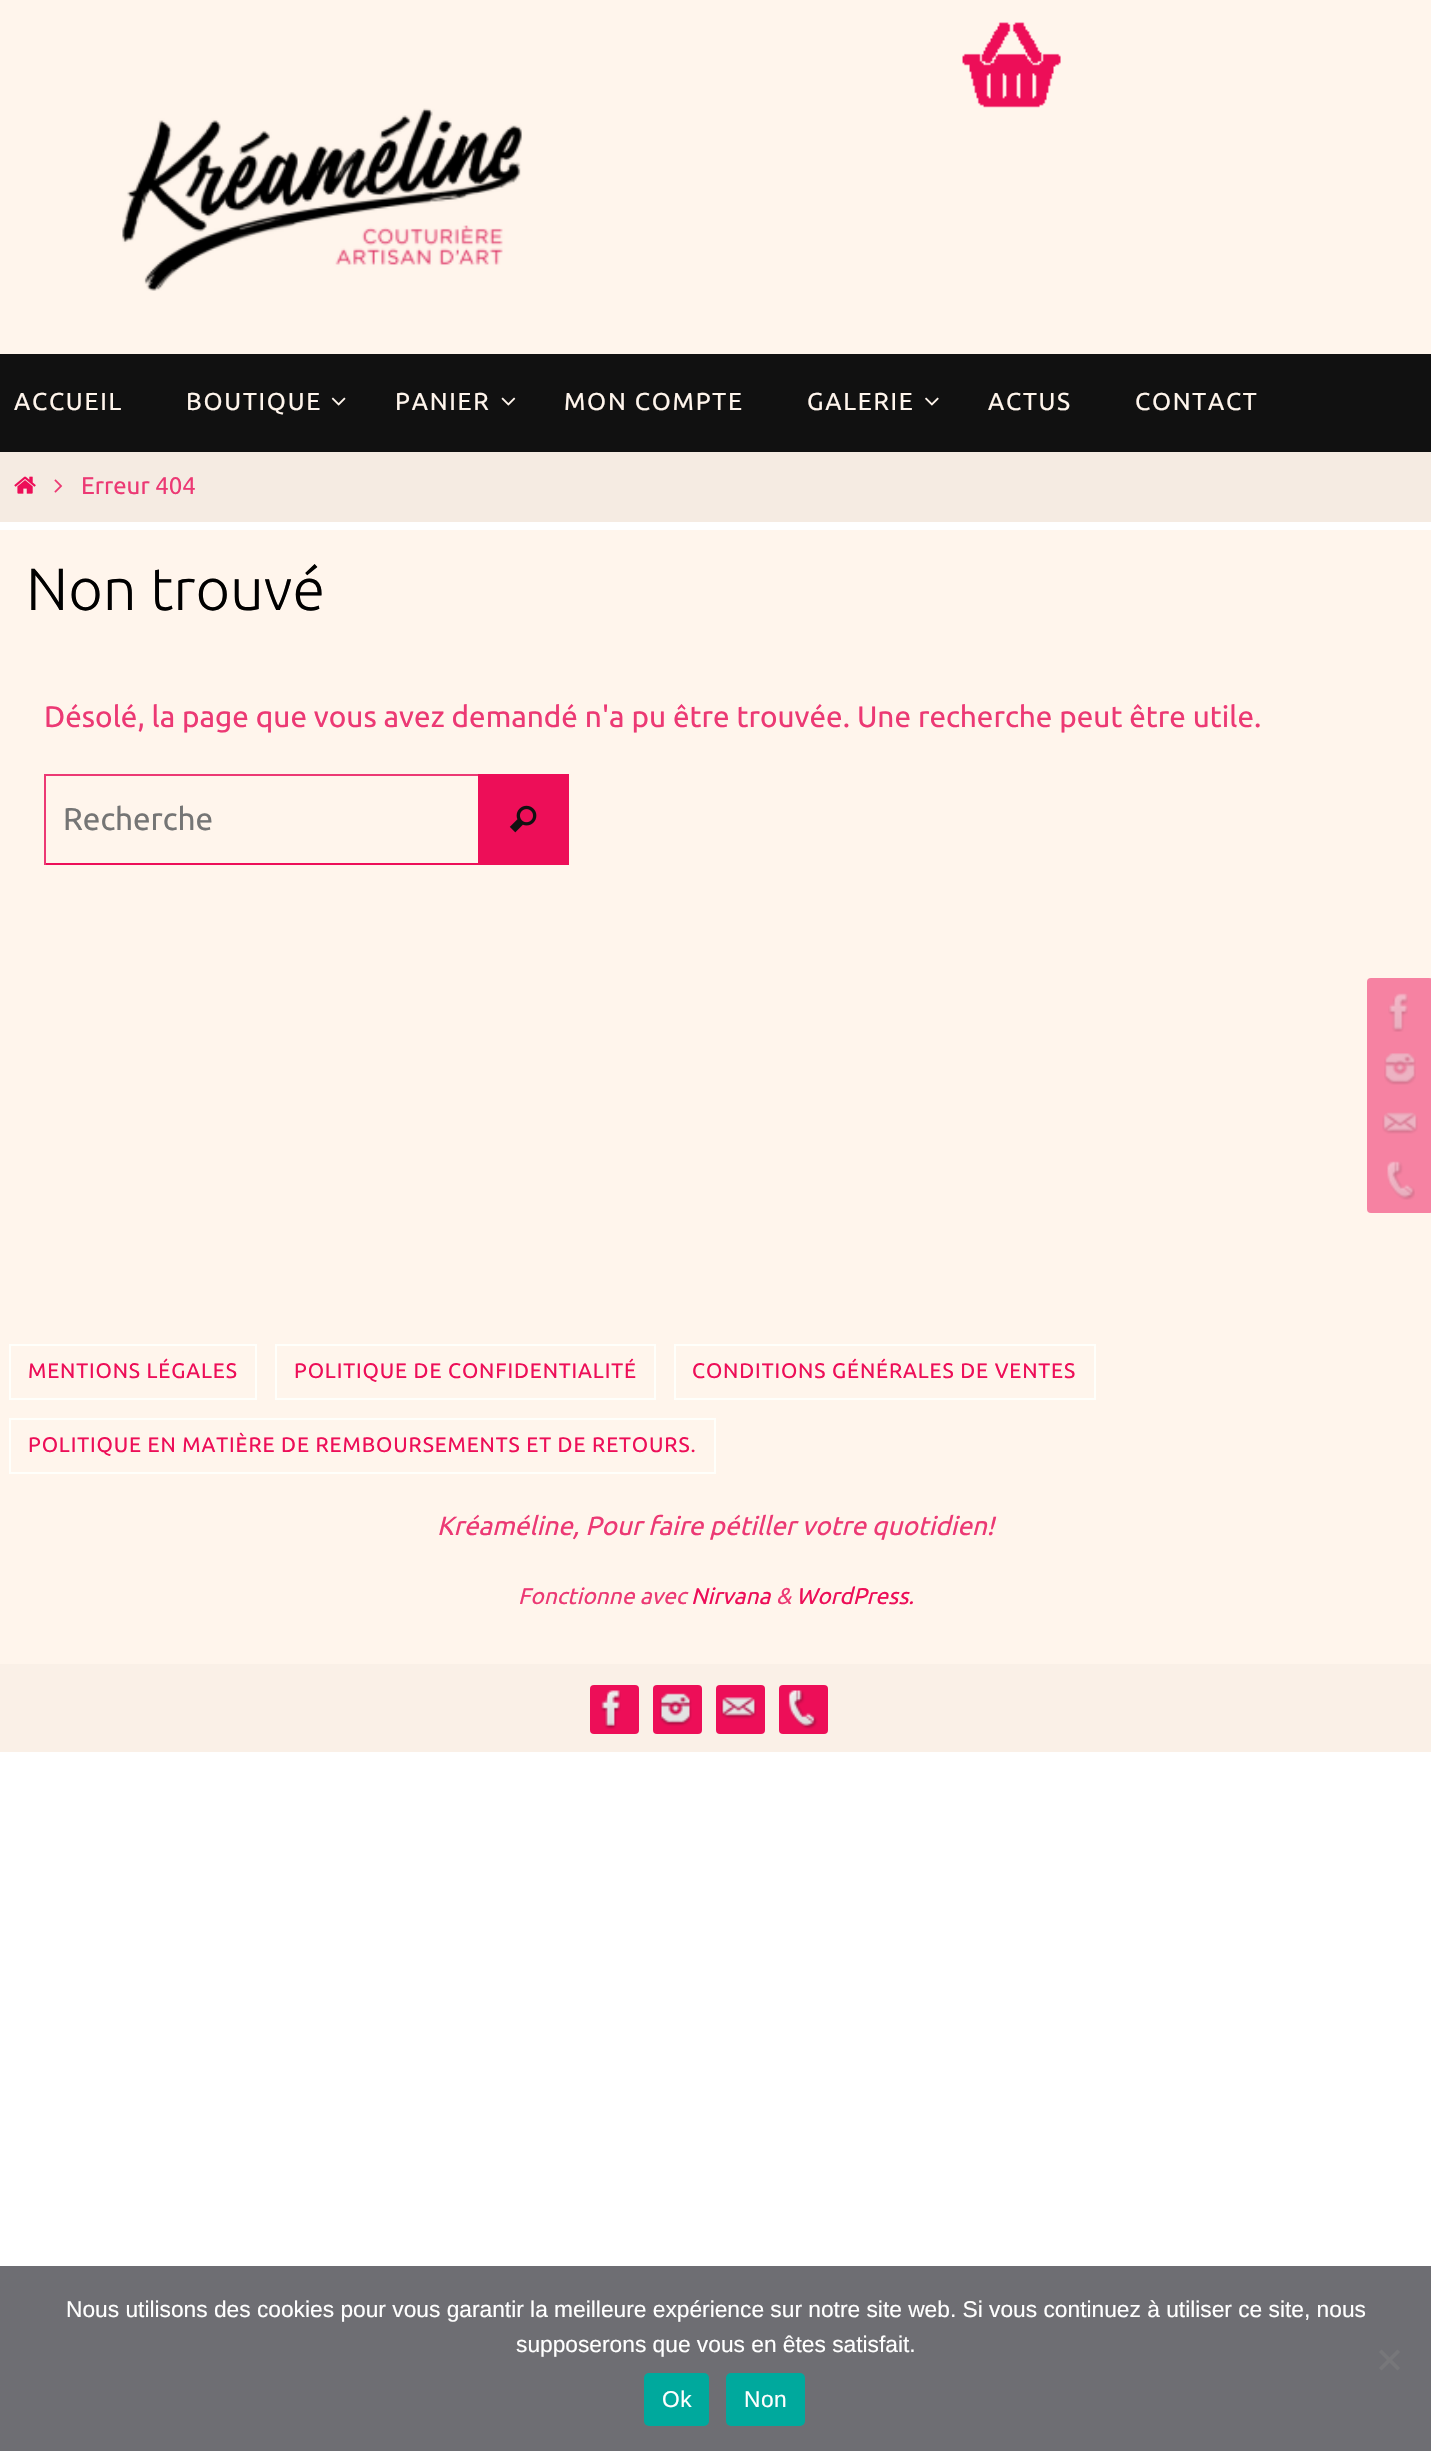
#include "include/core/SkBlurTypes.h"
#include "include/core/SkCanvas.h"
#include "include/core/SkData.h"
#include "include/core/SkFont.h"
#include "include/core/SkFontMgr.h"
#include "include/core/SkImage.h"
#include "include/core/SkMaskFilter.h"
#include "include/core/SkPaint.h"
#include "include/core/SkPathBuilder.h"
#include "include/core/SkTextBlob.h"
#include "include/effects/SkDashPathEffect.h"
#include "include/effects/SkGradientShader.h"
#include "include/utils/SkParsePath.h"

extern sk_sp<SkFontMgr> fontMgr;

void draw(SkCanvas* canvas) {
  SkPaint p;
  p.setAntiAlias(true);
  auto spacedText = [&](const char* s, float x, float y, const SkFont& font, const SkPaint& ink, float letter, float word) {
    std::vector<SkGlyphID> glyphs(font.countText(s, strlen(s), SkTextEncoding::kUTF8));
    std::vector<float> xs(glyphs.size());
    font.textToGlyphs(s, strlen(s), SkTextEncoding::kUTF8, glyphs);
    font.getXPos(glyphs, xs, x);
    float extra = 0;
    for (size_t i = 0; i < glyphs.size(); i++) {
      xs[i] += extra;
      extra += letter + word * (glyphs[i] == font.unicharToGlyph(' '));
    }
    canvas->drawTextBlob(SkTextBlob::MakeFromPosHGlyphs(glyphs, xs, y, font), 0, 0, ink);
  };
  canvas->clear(SK_ColorWHITE);
  p.setColor(SkColorSetRGB(255, 245, 236));
  canvas->drawRect(SkRect::MakeLTRB(0, 0, 1431, 354), p);
  canvas->drawImageRect(SkImages::DeferredFromEncodedData(SkData::MakeFromFileName("images/1.png")), SkRect::MakeLTRB(962, 22, 1061, 108), SkSamplingOptions());
  canvas->drawImageRect(SkImages::DeferredFromEncodedData(SkData::MakeFromFileName("images/2.png")), SkRect::MakeLTRB(122, 108, 522, 291), SkSamplingOptions());
  p.setColor(SkColorSetRGB(17, 17, 17));
  canvas->drawRect(SkRect::MakeLTRB(0, 354, 1431, 452), p);
  canvas->drawImageRect(SkImages::DeferredFromEncodedData(SkData::MakeFromFileName("images/3.png")), SkRect::MakeLTRB(331, 397, 346, 406), SkSamplingOptions());
  canvas->drawImageRect(SkImages::DeferredFromEncodedData(SkData::MakeFromFileName("images/4.png")), SkRect::MakeLTRB(501, 397, 516, 406), SkSamplingOptions());
  canvas->drawImageRect(SkImages::DeferredFromEncodedData(SkData::MakeFromFileName("images/5.png")), SkRect::MakeLTRB(925, 397, 939, 406), SkSamplingOptions());
  p.setColor(SkColorSetRGB(245, 235, 226));
  canvas->drawRect(SkRect::MakeLTRB(0, 452, 1431, 522), p);
  canvas->drawImageRect(SkImages::DeferredFromEncodedData(SkData::MakeFromFileName("images/6.png")), SkRect::MakeLTRB(14, 476, 36, 494), SkSamplingOptions());
  canvas->drawImageRect(SkImages::DeferredFromEncodedData(SkData::MakeFromFileName("images/7.png")), SkRect::MakeLTRB(54, 479, 63, 493), SkSamplingOptions());
  p.setColor(SkColorSetRGB(255, 245, 236));
  canvas->drawRect(SkRect::MakeLTRB(0, 530, 1431, 1664), p);
  p.setColor(SkColorSetRGB(236, 57, 116));
  canvas->drawRect(SkRect::MakeLTRB(44, 774, 478, 776), p);
  p.setColor(SkColorSetRGB(237, 14, 88));
  canvas->drawRect(SkRect::MakeLTRB(44, 863, 478, 865), p);
  p.setColor(SkColorSetRGB(236, 57, 116));
  canvas->drawRect(SkRect::MakeLTRB(44, 774, 46, 865), p);
  p.setColor(SkColorSetRGB(237, 14, 88));
  canvas->drawRect(SkRect::MakeLTRB(478, 774, 569, 865), p);
  canvas->drawImageRect(SkImages::DeferredFromEncodedData(SkData::MakeFromFileName("images/8.png")), SkRect::MakeLTRB(509, 805, 537, 833), SkSamplingOptions());
  p.setStyle(SkPaint::kStroke_Style);
  p.setStrokeWidth(2);
  p.setColor(SkColorSetRGB(255, 255, 251));
  canvas->drawRect(SkRect::MakeLTRB(10, 1345, 256, 1399), p);
  canvas->drawRect(SkRect::MakeLTRB(276, 1345, 655, 1399), p);
  canvas->drawRect(SkRect::MakeLTRB(675, 1345, 1095, 1399), p);
  canvas->drawRect(SkRect::MakeLTRB(10, 1419, 715, 1473), p);
  p.setStyle(SkPaint::kFill_Style);
  p.setColor(SkColorSetRGB(250, 240, 231));
  canvas->drawRect(SkRect::MakeLTRB(0, 1664, 1431, 1752), p);
  p.setColor(SkColorSetRGB(237, 14, 88));
  canvas->drawRoundRect(SkRect::MakeLTRB(590, 1685, 639, 1734), 4, 4, p);
  canvas->drawImageRect(SkImages::DeferredFromEncodedData(SkData::MakeFromFileName("images/9.png")), SkRect::MakeLTRB(600, 1690, 621, 1729), SkSamplingOptions());
  canvas->drawRoundRect(SkRect::MakeLTRB(653, 1685, 702, 1734), 4, 4, p);
  canvas->drawImageRect(SkImages::DeferredFromEncodedData(SkData::MakeFromFileName("images/10.png")), SkRect::MakeLTRB(659, 1693, 692, 1726), SkSamplingOptions());
  canvas->drawRoundRect(SkRect::MakeLTRB(716, 1685, 765, 1734), 4, 4, p);
  canvas->drawImageRect(SkImages::DeferredFromEncodedData(SkData::MakeFromFileName("images/11.png")), SkRect::MakeLTRB(721, 1697, 757, 1719), SkSamplingOptions());
  canvas->drawRoundRect(SkRect::MakeLTRB(779, 1685, 828, 1734), 4, 4, p);
  canvas->drawImageRect(SkImages::DeferredFromEncodedData(SkData::MakeFromFileName("images/12.png")), SkRect::MakeLTRB(788, 1690, 818, 1729), SkSamplingOptions());
  p.setColor(SkColorSetRGB(246, 130, 162));
  canvas->drawRoundRect(SkRect::MakeLTRB(1367, 978, 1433, 1045), 4, 4, p);
  canvas->drawImageRect(SkImages::DeferredFromEncodedData(SkData::MakeFromFileName("images/13.png")), SkRect::MakeLTRB(1388, 993, 1408, 1032), SkSamplingOptions());
  canvas->drawRoundRect(SkRect::MakeLTRB(1367, 1034, 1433, 1101), 4, 4, p);
  canvas->drawImageRect(SkImages::DeferredFromEncodedData(SkData::MakeFromFileName("images/14.png")), SkRect::MakeLTRB(1384, 1053, 1416, 1085), SkSamplingOptions());
  canvas->drawRoundRect(SkRect::MakeLTRB(1367, 1090, 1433, 1157), 4, 4, p);
  canvas->drawImageRect(SkImages::DeferredFromEncodedData(SkData::MakeFromFileName("images/15.png")), SkRect::MakeLTRB(1382, 1112, 1418, 1134), SkSamplingOptions());
  canvas->drawRoundRect(SkRect::MakeLTRB(1367, 1146, 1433, 1213), 4, 4, p);
  canvas->drawImageRect(SkImages::DeferredFromEncodedData(SkData::MakeFromFileName("images/16.png")), SkRect::MakeLTRB(1387, 1161, 1415, 1200), SkSamplingOptions());
  p.setColor(SkColorSetRGB(110, 110, 115));
  canvas->drawRect(SkRect::MakeLTRB(0, 2266, 1431, 2451), p);
  p.setColor(SkColorSetRGB(119, 119, 122));
  canvas->drawPath(SkPathBuilder().moveTo(1397.5f, 2349.5f).lineTo(1400, 2352).lineTo(1381.5f, 2370.5f).lineTo(1379, 2368).close().detach(), p);
  canvas->drawPath(SkPathBuilder().moveTo(1379, 2352).lineTo(1381.5f, 2349.5f).lineTo(1400, 2368).lineTo(1397.5f, 2370.5f).close().detach(), p);
  p.setColor(SkColorSetRGB(0, 169, 157));
  canvas->drawRoundRect(SkRect::MakeLTRB(644, 2373, 709, 2426), 5, 5, p);
  canvas->drawRoundRect(SkRect::MakeLTRB(726, 2373, 805, 2426), 5, 5, p);
  SkFont font1(fontMgr->matchFamilyStyle("Ubuntu", SkFontStyle::Normal()), 24.5f);
  font1.setSubpixel(true);
  p.setColor(SkColorSetRGB(255, 245, 236));
  spacedText("ACCUEIL", 14, 410, font1, p, 1.75f, 0);
  spacedText("BOUTIQUE", 186, 410, font1, p, 1.75f, 0);
  spacedText("PANIER", 395, 410, font1, p, 1.75f, 0);
  spacedText("MON COMPTE", 564, 410, font1, p, 1.75f, 0);
  spacedText("GALERIE", 807, 410, font1, p, 1.75f, 0);
  spacedText("ACTUS", 988, 410, font1, p, 1.75f, 0);
  spacedText("CONTACT", 1135, 410, font1, p, 1.75f, 0);
  SkFont font2(fontMgr->matchFamilyStyle("Ubuntu", SkFontStyle::Normal()), 24);
  font2.setSubpixel(true);
  p.setColor(SkColorSetRGB(236, 57, 116));
  canvas->drawString("Erreur 404", 81, 494, font2, p);
  SkFont font3(fontMgr->matchFamilyStyle("Ubuntu", SkFontStyle(300, SkFontStyle::kNormal_Width, SkFontStyle::kUpright_Slant)), 59.5f);
  font3.setSubpixel(true);
  p.setColor(SK_ColorBLACK);
  canvas->drawString("Non trouvé", 26, 610, font3, p);
  SkFont font4(fontMgr->matchFamilyStyle("Ubuntu", SkFontStyle::Normal()), 29.75f);
  font4.setSubpixel(true);
  p.setColor(SkColorSetRGB(236, 57, 116));
  canvas->drawString("Désolé, la page que vous avez demandé n'a pu être trouvée. Une recherche peut être utile.", 44, 727, font4, p);
  SkFont font5(fontMgr->matchFamilyStyle("Ubuntu", SkFontStyle::Normal()), 31.5f);
  font5.setSubpixel(true);
  p.setColor(SkColorSetRGB(117, 117, 117));
  canvas->drawString("Recherche", 63, 830, font5, p);
  SkFont font6(fontMgr->matchFamilyStyle("Ubuntu", SkFontStyle::Normal()), 21);
  font6.setSubpixel(true);
  p.setColor(SkColorSetRGB(237, 14, 88));
  spacedText("MENTIONS LÉGALES", 28, 1378, font6, p, 0.88f, 0);
  spacedText("POLITIQUE DE CONFIDENTIALITÉ", 294, 1378, font6, p, 0.88f, 0);
  spacedText("CONDITIONS GÉNÉRALES DE VENTES", 692, 1378, font6, p, 0.88f, 0);
  spacedText("POLITIQUE EN MATIÈRE DE REMBOURSEMENTS ET DE RETOURS.", 28, 1452, font6, p, 0.88f, 0);
  SkFont font7(fontMgr->matchFamilyStyle("Ubuntu", SkFontStyle::Italic()), 26.25f);
  font7.setSubpixel(true);
  p.setColor(SkColorSetRGB(236, 57, 116));
  canvas->drawString("Kréaméline, Pour faire pétiller votre quotidien!", 437, 1535, font7, p);
  SkFont font8(fontMgr->matchFamilyStyle("Ubuntu", SkFontStyle::Italic()), 22.75f);
  font8.setSubpixel(true);
  canvas->drawString("Fonctionne avec", 518, 1604, font8, p);
  p.setColor(SkColorSetRGB(237, 14, 88));
  canvas->drawString("Nirvana", 691, 1604, font8, p);
  p.setColor(SkColorSetRGB(236, 57, 116));
  canvas->drawString("&", 776, 1604, font8, p);
  p.setColor(SkColorSetRGB(237, 14, 88));
  canvas->drawString("WordPress.", 796, 1604, font8, p);
  SkFont font9(fontMgr->matchFamilyStyle("Liberation Sans", SkFontStyle::Normal()), 22.75f);
  font9.setSubpixel(true);
  p.setColor(SK_ColorWHITE);
  canvas->drawString("Nous utilisons des cookies pour vous garantir la meilleure expérience sur notre site web. Si vous continuez à utiliser ce site, nous", 66, 2317, font9, p);
  canvas->drawString("supposerons que vous en êtes satisfait.", 516, 2352, font9, p);
  spacedText("Ok", 662, 2407, font9, p, 0.5f, 0);
  spacedText("Non", 744, 2407, font9, p, 0.5f, 0);
}
